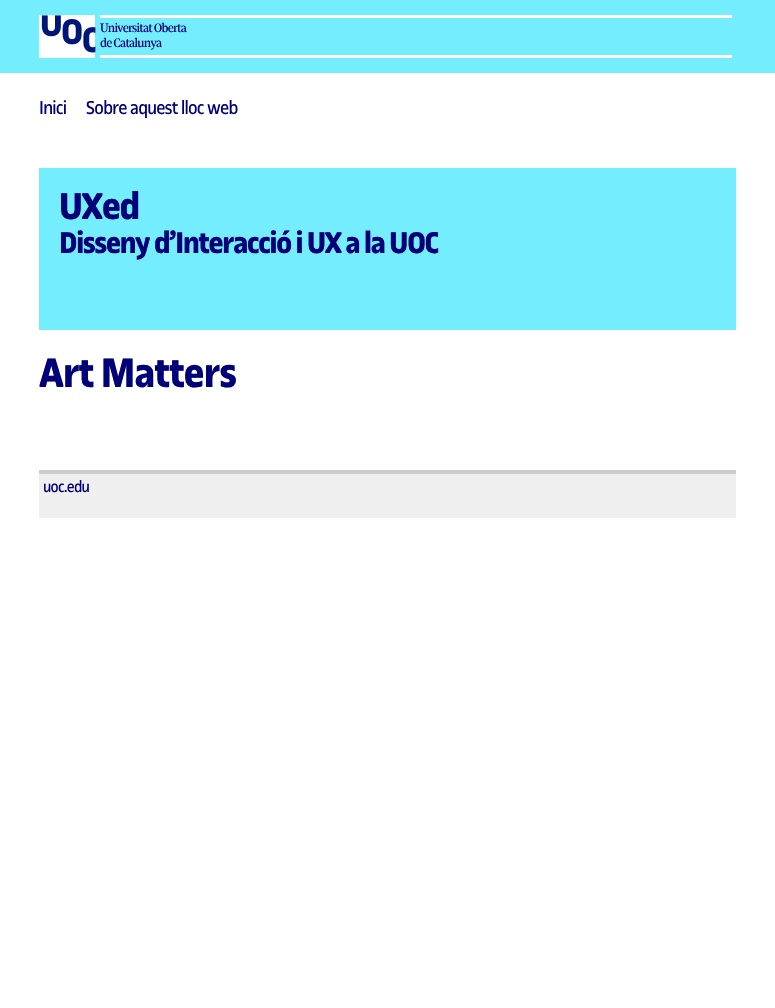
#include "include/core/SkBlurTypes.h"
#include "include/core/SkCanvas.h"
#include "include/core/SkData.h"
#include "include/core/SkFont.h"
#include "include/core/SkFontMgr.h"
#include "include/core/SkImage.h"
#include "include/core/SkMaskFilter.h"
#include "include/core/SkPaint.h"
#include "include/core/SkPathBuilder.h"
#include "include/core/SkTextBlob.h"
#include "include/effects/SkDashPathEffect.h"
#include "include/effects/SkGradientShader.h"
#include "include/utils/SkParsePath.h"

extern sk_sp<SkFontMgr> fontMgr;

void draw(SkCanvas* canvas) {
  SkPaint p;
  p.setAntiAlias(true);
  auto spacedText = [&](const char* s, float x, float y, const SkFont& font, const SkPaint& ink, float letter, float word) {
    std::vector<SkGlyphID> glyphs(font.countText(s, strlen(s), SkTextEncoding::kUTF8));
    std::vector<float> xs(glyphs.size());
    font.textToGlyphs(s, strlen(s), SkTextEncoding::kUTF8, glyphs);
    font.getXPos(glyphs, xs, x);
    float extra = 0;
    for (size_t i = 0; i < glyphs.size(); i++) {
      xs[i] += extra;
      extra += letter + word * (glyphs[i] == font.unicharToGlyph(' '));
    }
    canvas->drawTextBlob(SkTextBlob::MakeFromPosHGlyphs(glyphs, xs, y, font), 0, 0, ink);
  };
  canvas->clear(SK_ColorWHITE);
  p.setColor(SkColorSetRGB(116, 237, 255));
  canvas->drawRect(SkRect::MakeLTRB(0, 0, 775, 73), p);
  canvas->drawImageRect(SkImages::DeferredFromEncodedData(SkData::MakeFromFileName("images/1.png")), SkRect::MakeLTRB(39, 15, 96, 58), SkSamplingOptions());
  p.setColor(SK_ColorWHITE);
  canvas->drawRect(SkRect::MakeLTRB(100, 15, 732, 18), p);
  canvas->drawRect(SkRect::MakeLTRB(100, 55, 732, 58), p);
  p.setColor(SkColorSetRGB(116, 237, 255));
  canvas->drawRect(SkRect::MakeLTRB(39, 168, 736, 330), p);
  p.setColor(SkColorSetRGB(239, 239, 239));
  canvas->drawRect(SkRect::MakeLTRB(39, 474, 736, 518), p);
  p.setColor(SkColorSetRGB(204, 204, 204));
  canvas->drawRect(SkRect::MakeLTRB(39, 470, 736, 474), p);
  SkFont font1(fontMgr->matchFamilyStyle("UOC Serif", SkFontStyle::Normal()), 13);
  font1.setSubpixel(true);
  p.setColor(SkColorSetRGB(0, 0, 120));
  spacedText("Universitat Oberta", 100, 32, font1, p, -0.75f, 0);
  spacedText("de Catalunya", 100, 47, font1, p, -0.75f, 0);
  SkFont font2(fontMgr->matchFamilyStyle("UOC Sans", SkFontStyle::Normal()), 20);
  font2.setSubpixel(true);
  spacedText("Inici", 39, 114, font2, p, -0.75f, 0);
  spacedText("Sobre aquest lloc web", 86, 114, font2, p, -0.75f, 0);
  SkFont font3(fontMgr->matchFamilyStyle("UOC Sans", SkFontStyle::Bold()), 40);
  font3.setSubpixel(true);
  spacedText("UXed", 59, 219, font3, p, -1.2f, 0);
  SkFont font4(fontMgr->matchFamilyStyle("UOC Sans", SkFontStyle::Bold()), 32);
  font4.setSubpixel(true);
  spacedText("Disseny d’Interacció i UX a la UOC", 59, 253, font4, p, -1.2f, 0);
  SkFont font5(fontMgr->matchFamilyStyle("UOC Sans", SkFontStyle::Bold()), 44);
  font5.setSubpixel(true);
  spacedText("Art Matters", 39, 387, font5, p, -0.75f, 0);
  SkFont font6(fontMgr->matchFamilyStyle("UOC Sans", SkFontStyle::Normal()), 17);
  font6.setSubpixel(true);
  spacedText("uoc.edu", 43, 492, font6, p, -0.75f, 0);
}
